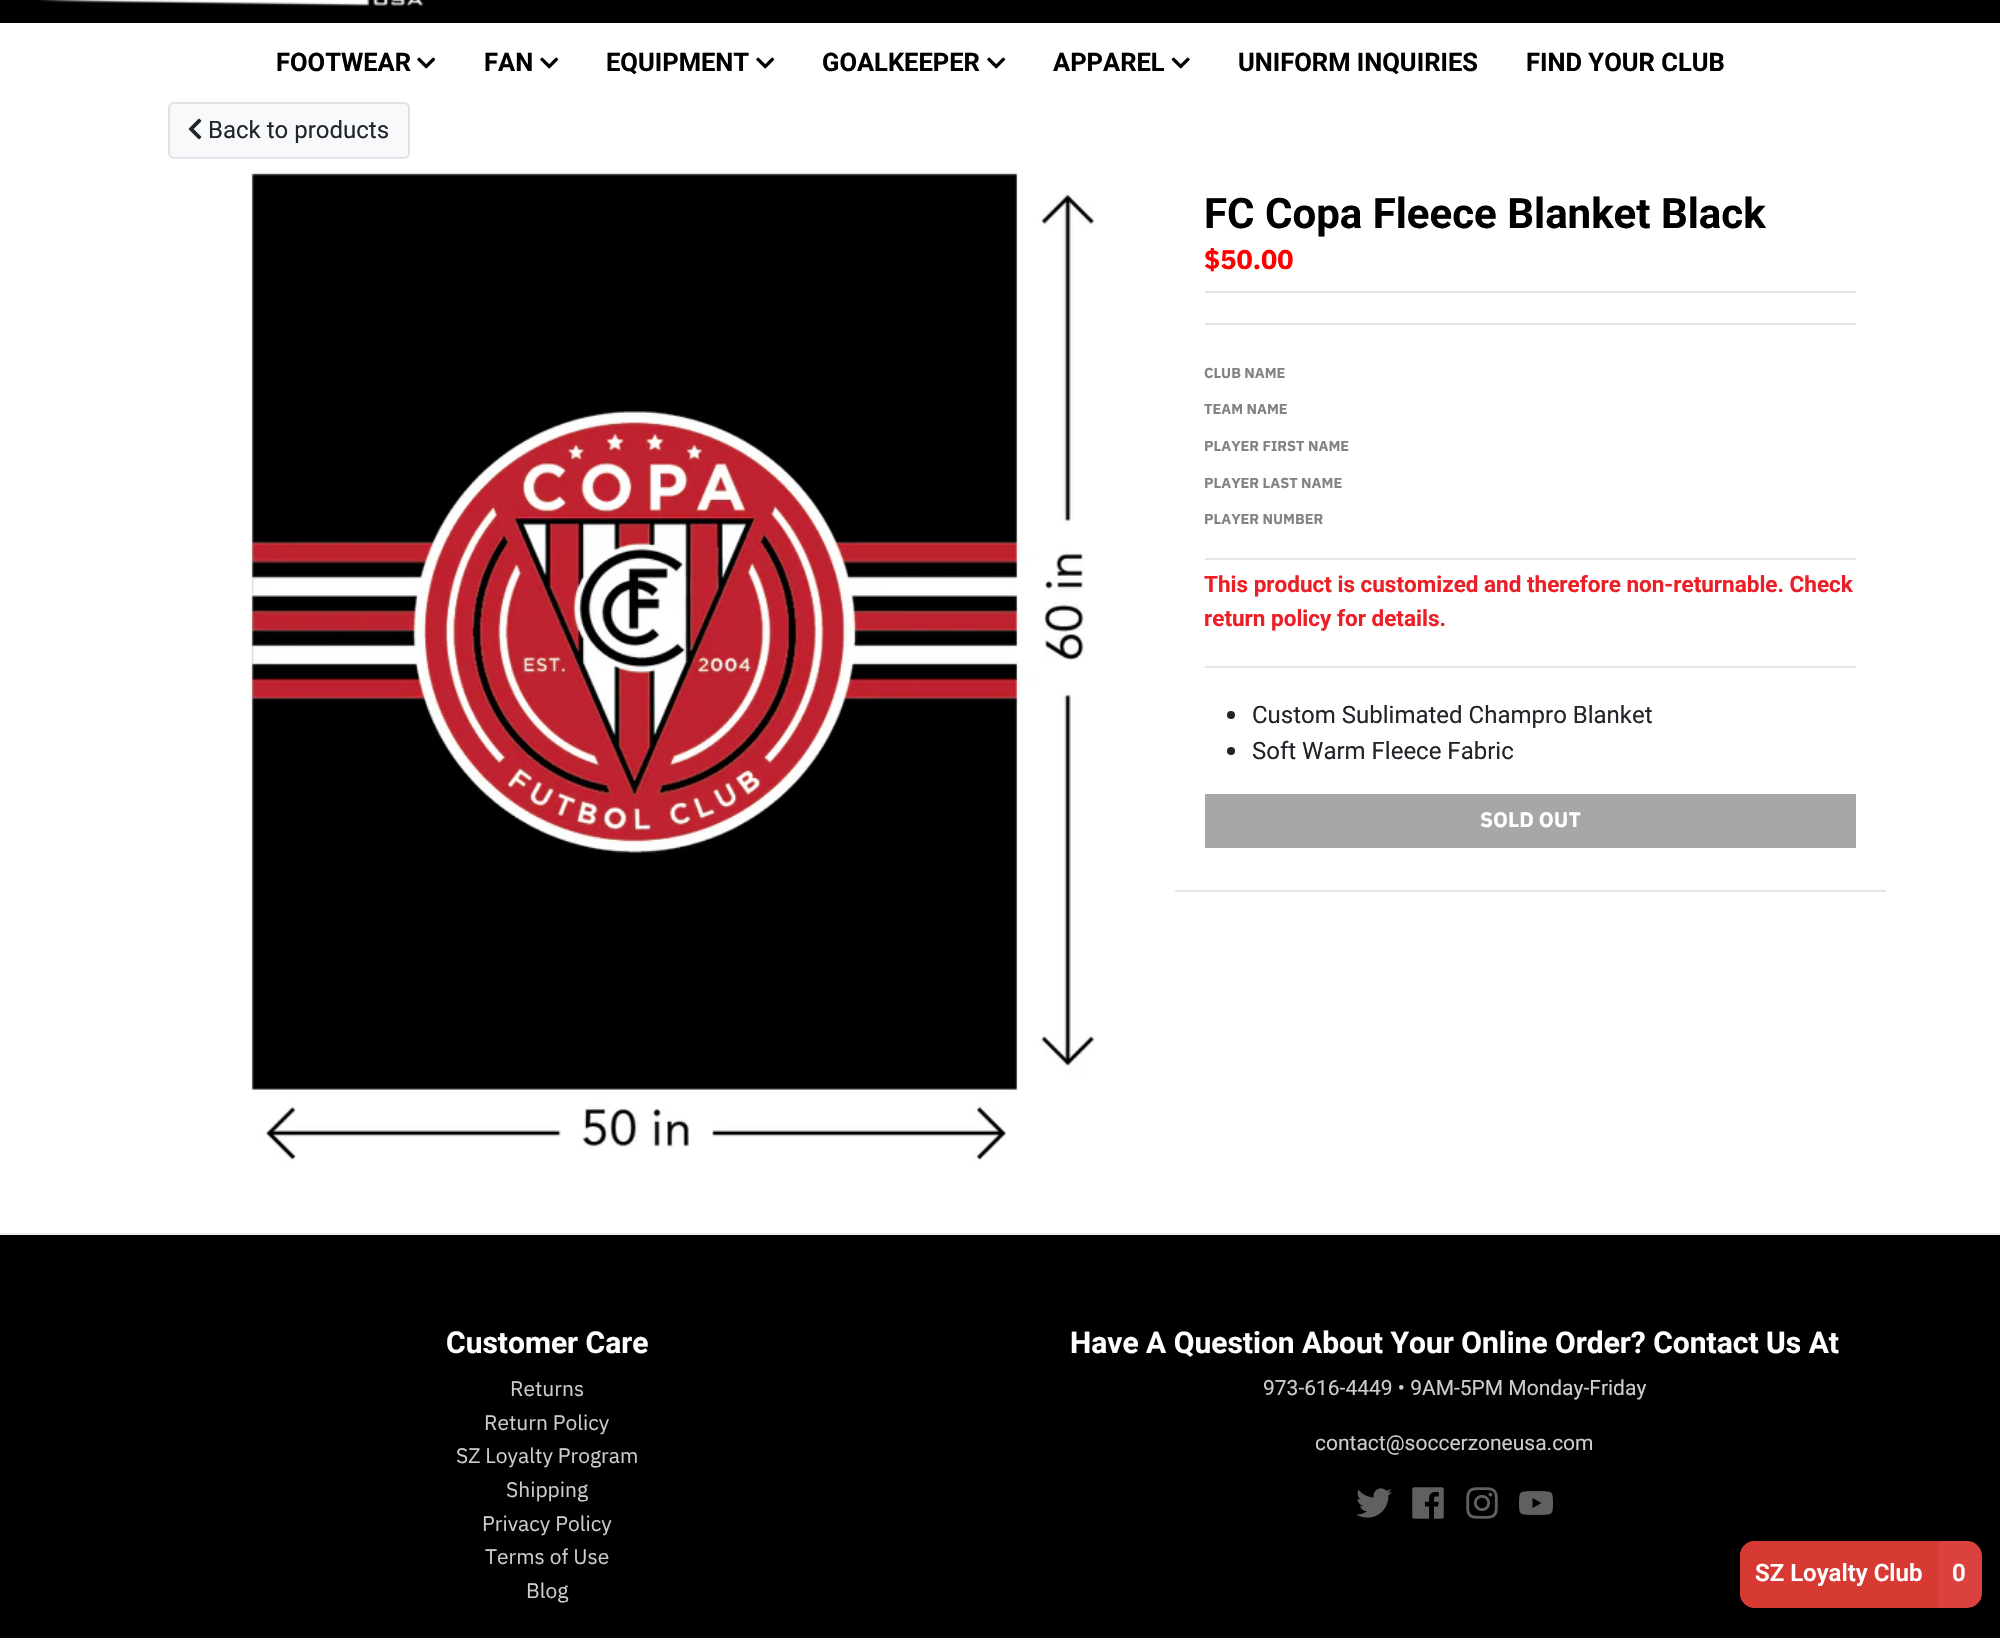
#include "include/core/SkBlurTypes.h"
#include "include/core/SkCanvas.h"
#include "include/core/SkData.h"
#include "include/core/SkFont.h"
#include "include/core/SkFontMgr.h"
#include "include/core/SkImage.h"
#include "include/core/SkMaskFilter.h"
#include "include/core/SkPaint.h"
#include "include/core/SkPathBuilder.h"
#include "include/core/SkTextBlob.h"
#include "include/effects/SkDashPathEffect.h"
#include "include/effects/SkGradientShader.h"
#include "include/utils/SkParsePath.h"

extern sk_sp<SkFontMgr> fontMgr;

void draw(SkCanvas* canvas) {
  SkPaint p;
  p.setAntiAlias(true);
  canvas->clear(SK_ColorWHITE);
  p.setColor(SK_ColorBLACK);
  canvas->drawRect(SkRect::MakeLTRB(0, 0, 2000, 23), p);
  canvas->drawImageRect(SkImages::DeferredFromEncodedData(SkData::MakeFromFileName("images/1.png")), SkRect::MakeLTRB(40, 0, 424, 6), SkSamplingOptions());
  canvas->drawImageRect(SkImages::DeferredFromEncodedData(SkData::MakeFromFileName("images/2.png")), SkRect::MakeLTRB(417, 57, 436, 69), SkSamplingOptions());
  canvas->drawImageRect(SkImages::DeferredFromEncodedData(SkData::MakeFromFileName("images/2.png")), SkRect::MakeLTRB(540, 57, 559, 69), SkSamplingOptions());
  canvas->drawImageRect(SkImages::DeferredFromEncodedData(SkData::MakeFromFileName("images/2.png")), SkRect::MakeLTRB(756, 57, 775, 69), SkSamplingOptions());
  canvas->drawImageRect(SkImages::DeferredFromEncodedData(SkData::MakeFromFileName("images/2.png")), SkRect::MakeLTRB(987, 57, 1006, 69), SkSamplingOptions());
  canvas->drawImageRect(SkImages::DeferredFromEncodedData(SkData::MakeFromFileName("images/3.png")), SkRect::MakeLTRB(1171, 57, 1190, 69), SkSamplingOptions());
  p.setColor(SkColorSetRGB(237, 237, 237));
  canvas->drawRect(SkRect::MakeLTRB(0, 1233, 2000, 1235), p);
  p.setColor(SkColorSetRGB(248, 249, 250));
  canvas->drawRoundRect(SkRect::MakeLTRB(169, 103, 409, 158), 5, 5, p);
  p.setStyle(SkPaint::kStroke_Style);
  p.setStrokeWidth(2);
  p.setColor(SkColorSetRGB(222, 226, 230));
  canvas->drawRoundRect(SkRect::MakeLTRB(169, 103, 409, 158), 5, 5, p);
  canvas->drawImageRect(SkImages::DeferredFromEncodedData(SkData::MakeFromFileName("images/4.png")), SkRect::MakeLTRB(188, 118, 202, 140), SkSamplingOptions());
  canvas->drawImageRect(SkImages::DeferredFromEncodedData(SkData::MakeFromFileName("images/5.png")), SkRect::MakeLTRB(172, 158, 1095, 1163), SkSamplingOptions());
  p.setStyle(SkPaint::kFill_Style);
  p.setColor(SkColorSetRGB(229, 229, 229));
  canvas->drawRect(SkRect::MakeLTRB(1175, 890, 1886, 892), p);
  canvas->drawRect(SkRect::MakeLTRB(1205, 291, 1856, 293), p);
  canvas->drawRect(SkRect::MakeLTRB(1205, 323, 1856, 325), p);
  canvas->drawRect(SkRect::MakeLTRB(1205, 558, 1856, 560), p);
  canvas->drawRect(SkRect::MakeLTRB(1205, 666, 1856, 668), p);
  p.setColor(SkColorSetRGB(33, 37, 41));
  canvas->drawCircle(1231, 715, 4, p);
  canvas->drawCircle(1231, 751, 4, p);
  p.setColor(SkColorSetRGB(167, 167, 167));
  canvas->drawRect(SkRect::MakeLTRB(1205, 794, 1856, 848), p);
  p.setColor(SK_ColorBLACK);
  canvas->drawRect(SkRect::MakeLTRB(0, 1235, 2000, 1638), p);
  canvas->drawImageRect(SkImages::DeferredFromEncodedData(SkData::MakeFromFileName("images/6.png")), SkRect::MakeLTRB(1356, 1488, 1392, 1518), SkSamplingOptions());
  canvas->drawImageRect(SkImages::DeferredFromEncodedData(SkData::MakeFromFileName("images/7.png")), SkRect::MakeLTRB(1412, 1487, 1444, 1519), SkSamplingOptions());
  canvas->drawImageRect(SkImages::DeferredFromEncodedData(SkData::MakeFromFileName("images/8.png")), SkRect::MakeLTRB(1466, 1487, 1498, 1519), SkSamplingOptions());
  canvas->drawImageRect(SkImages::DeferredFromEncodedData(SkData::MakeFromFileName("images/9.png")), SkRect::MakeLTRB(1518, 1491, 1554, 1515), SkSamplingOptions());
  p.setColor(SkColorSetRGB(220, 66, 61));
  canvas->drawRoundRect(SkRect::MakeLTRB(1740, 1541, 1982, 1608), 15, 15, p);
  p.setColor(SkColorSetRGB(215, 57, 51));
  canvas->drawPath(SkPathBuilder().moveTo(1755, 1541).lineTo(1938, 1541).lineTo(1938, 1608).lineTo(1755, 1608).cubicTo(1746.5f, 1608, 1740, 1601.5f, 1740, 1593).lineTo(1740, 1556).cubicTo(1740, 1547.5f, 1746.5f, 1541, 1755, 1541).close().detach(), p);
  SkFont font1(fontMgr->matchFamilyStyle("Roboto", SkFontStyle::Bold()), 25.5f);
  font1.setSubpixel(true);
  p.setColor(SK_ColorBLACK);
  canvas->drawString("FOOTWEAR", 276, 71, font1, p);
  canvas->drawString("FAN", 484, 71, font1, p);
  canvas->drawString("EQUIPMENT", 606, 71, font1, p);
  canvas->drawString("GOALKEEPER", 822, 71, font1, p);
  canvas->drawString("APPAREL", 1053, 71, font1, p);
  canvas->drawString("UNIFORM INQUIRIES", 1238, 71, font1, p);
  canvas->drawString("FIND YOUR CLUB", 1526, 71, font1, p);
  SkFont font2(fontMgr->matchFamilyStyle("Roboto", SkFontStyle::Normal()), 24);
  font2.setSubpixel(true);
  p.setColor(SkColorSetRGB(33, 37, 41));
  canvas->drawString("Back to products", 208, 138, font2, p);
  SkFont font3(fontMgr->matchFamilyStyle("Roboto", SkFontStyle::Bold()), 42);
  font3.setSubpixel(true);
  p.setColor(SK_ColorBLACK);
  canvas->drawString("FC Copa Fleece Blanket Black", 1204, 228, font3, p);
  SkFont font4(fontMgr->matchFamilyStyle("IBM Plex Sans", SkFontStyle::Bold()), 27);
  font4.setSubpixel(true);
  p.setColor(SkColorSetRGB(255, 0, 0));
  canvas->drawString("$50.00", 1204, 269, font4, p);
  SkFont font5(fontMgr->matchFamilyStyle("IBM Plex Sans", SkFontStyle::Bold()), 14.5f);
  font5.setSubpixel(true);
  p.setColor(SkColorSetRGB(131, 131, 131));
  canvas->drawString("CLUB NAME", 1204, 378, font5, p);
  canvas->drawString("TEAM NAME", 1204, 414, font5, p);
  canvas->drawString("PLAYER FIRST NAME", 1204, 451, font5, p);
  canvas->drawString("PLAYER LAST NAME", 1204, 488, font5, p);
  canvas->drawString("PLAYER NUMBER", 1204, 524, font5, p);
  SkFont font6(fontMgr->matchFamilyStyle("Roboto", SkFontStyle::Bold()), 22.5f);
  font6.setSubpixel(true);
  p.setColor(SkColorSetRGB(237, 31, 38));
  canvas->drawString("This product is customized and therefore non-returnable. Check", 1204, 592, font6, p);
  canvas->drawString("return policy for details.", 1204, 626, font6, p);
  p.setColor(SkColorSetRGB(33, 37, 41));
  canvas->drawString("Custom Sublimated Champro Blanket", 1252, 723, font2, p);
  canvas->drawString("Soft Warm Fleece Fabric", 1252, 759, font2, p);
  SkFont font7(fontMgr->matchFamilyStyle("IBM Plex Sans", SkFontStyle::Bold()), 21);
  font7.setSubpixel(true);
  p.setColor(SK_ColorWHITE);
  canvas->drawString("SOLD OUT", 1480, 827, font7, p);
  SkFont font8(fontMgr->matchFamilyStyle("Roboto", SkFontStyle::Bold()), 30);
  font8.setSubpixel(true);
  canvas->drawString("Customer Care", 446, 1353, font8, p);
  SkFont font9(fontMgr->matchFamilyStyle("IBM Plex Sans", SkFontStyle::Normal()), 21);
  font9.setSubpixel(true);
  p.setColor(SkColorSetRGB(204, 204, 204));
  canvas->drawString("Returns", 510, 1396, font9, p);
  canvas->drawString("Return Policy", 484, 1430, font9, p);
  canvas->drawString("SZ Loyalty Program", 456, 1463, font9, p);
  canvas->drawString("Shipping", 506, 1497, font9, p);
  canvas->drawString("Privacy Policy", 482, 1531, font9, p);
  canvas->drawString("Terms of Use", 485, 1564, font9, p);
  canvas->drawString("Blog", 526, 1598, font9, p);
  p.setColor(SK_ColorWHITE);
  canvas->drawString("Have A Question About Your Online Order? Contact Us At", 1070, 1353, font8, p);
  SkFont font10(fontMgr->matchFamilyStyle("Roboto", SkFontStyle::Normal()), 21);
  font10.setSubpixel(true);
  p.setColor(SkColorSetRGB(204, 204, 204));
  canvas->drawString("973-616-4449 • 9AM-5PM Monday-Friday", 1263, 1395, font10, p);
  canvas->drawString("contact@soccerzoneusa.com", 1315, 1450, font10, p);
  SkFont font11(fontMgr->matchFamilyStyle("Roboto", SkFontStyle(600, SkFontStyle::kNormal_Width, SkFontStyle::kUpright_Slant)), 24);
  font11.setSubpixel(true);
  p.setColor(SK_ColorWHITE);
  canvas->drawString("SZ Loyalty Club", 1755, 1581, font11, p);
  canvas->drawString("0", 1952, 1581, font11, p);
}
